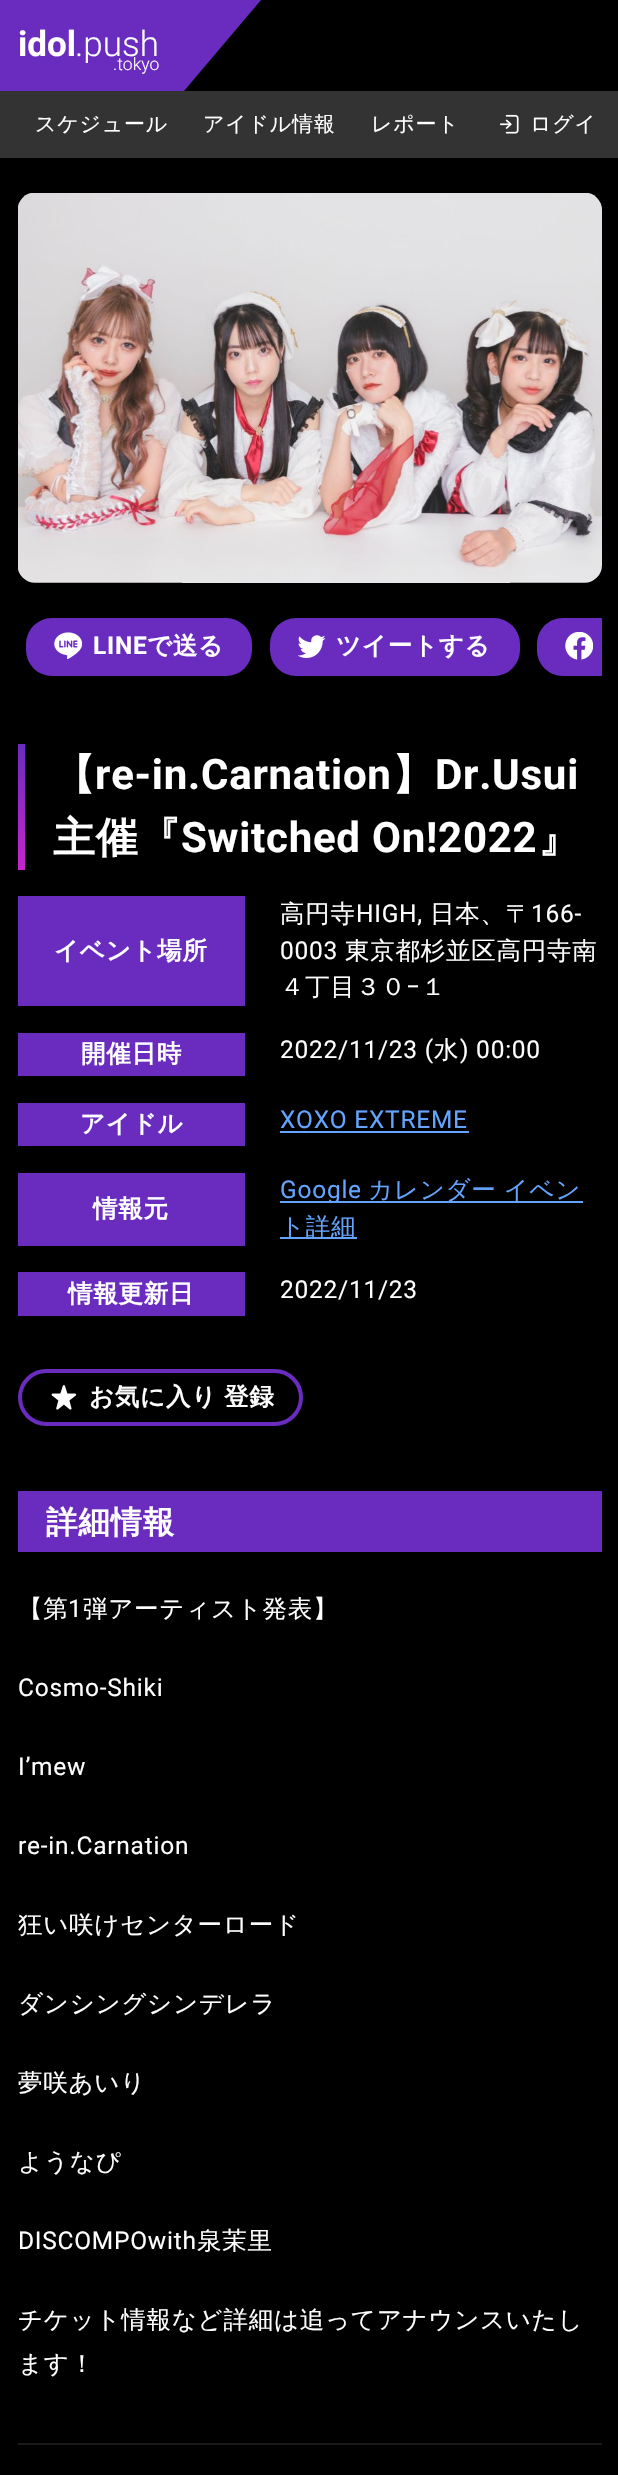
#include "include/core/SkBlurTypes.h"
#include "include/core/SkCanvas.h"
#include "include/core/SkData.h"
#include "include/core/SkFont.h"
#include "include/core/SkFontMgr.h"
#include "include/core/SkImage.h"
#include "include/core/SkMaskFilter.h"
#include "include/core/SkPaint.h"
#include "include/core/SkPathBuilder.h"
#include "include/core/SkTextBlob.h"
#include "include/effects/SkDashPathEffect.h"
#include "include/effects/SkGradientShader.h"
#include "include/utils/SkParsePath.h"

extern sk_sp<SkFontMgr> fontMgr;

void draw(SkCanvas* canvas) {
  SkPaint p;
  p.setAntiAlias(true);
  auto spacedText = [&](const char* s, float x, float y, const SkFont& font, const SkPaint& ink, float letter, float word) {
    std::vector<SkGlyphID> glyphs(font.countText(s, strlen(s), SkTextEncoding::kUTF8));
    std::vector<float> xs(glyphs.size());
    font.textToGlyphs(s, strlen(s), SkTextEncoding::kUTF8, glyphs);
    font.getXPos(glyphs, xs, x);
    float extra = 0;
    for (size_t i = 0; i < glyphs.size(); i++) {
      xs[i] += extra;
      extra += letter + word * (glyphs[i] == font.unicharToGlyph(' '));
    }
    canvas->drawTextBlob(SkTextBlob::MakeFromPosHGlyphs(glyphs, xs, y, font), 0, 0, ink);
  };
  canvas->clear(SK_ColorBLACK);
  p.setColor(SkColorSetRGB(105, 44, 191));
  canvas->drawRect(SkRect::MakeLTRB(0, 0, 184, 91), p);
  canvas->drawPath(SkPathBuilder().moveTo(184, 0).lineTo(261, 0).lineTo(184, 91).close().detach(), p);
  p.setColor(SkColorSetRGB(51, 51, 51));
  canvas->drawRect(SkRect::MakeLTRB(0, 91, 618, 158), p);
  canvas->drawImageRect(SkImages::DeferredFromEncodedData(SkData::MakeFromFileName("images/1.png")), SkRect::MakeLTRB(500, 114, 519, 134), SkSamplingOptions());
  canvas->drawImageRect(SkImages::DeferredFromEncodedData(SkData::MakeFromFileName("images/2.png")), SkRect::MakeLTRB(18, 193, 602, 583), SkSamplingOptions());
  p.setColor(SkColorSetRGB(105, 44, 191));
  canvas->drawRoundRect(SkRect::MakeLTRB(26, 618, 252, 676), 26, 26, p);
  canvas->drawImageRect(SkImages::DeferredFromEncodedData(SkData::MakeFromFileName("images/3.png")), SkRect::MakeLTRB(54, 632, 82, 659), SkSamplingOptions());
  canvas->drawRoundRect(SkRect::MakeLTRB(270, 618, 520, 676), 26, 26, p);
  canvas->drawImageRect(SkImages::DeferredFromEncodedData(SkData::MakeFromFileName("images/4.png")), SkRect::MakeLTRB(298, 635, 326, 658), SkSamplingOptions());
  canvas->drawPath(SkPathBuilder().moveTo(563, 618).lineTo(602, 618).lineTo(602, 676).lineTo(563, 676).cubicTo(548.5f, 676, 537, 664.5f, 537, 650).lineTo(537, 644).cubicTo(537, 629.5f, 548.5f, 618, 563, 618).close().detach(), p);
  canvas->drawImageRect(SkImages::DeferredFromEncodedData(SkData::MakeFromFileName("images/5.png")), SkRect::MakeLTRB(565, 632, 593, 660), SkSamplingOptions());
  {
    const SkColor colors[] = {SkColorSetRGB(105, 44, 191), SkColorSetRGB(198, 37, 204)};
    const float stops[] = {0, 1};
    const SkPoint ends[] = {{21, 744}, {21, 870}};
    p.setShader(SkGradientShader::MakeLinear(ends, colors, stops, 2, SkTileMode::kClamp));
    p.setAlpha(255);
  }
  canvas->drawRect(SkRect::MakeLTRB(18, 744, 25, 870), p);
  p.setShader(nullptr);
  p.setColor(SkColorSetRGB(105, 44, 191));
  canvas->drawRect(SkRect::MakeLTRB(18, 896, 245, 1006), p);
  canvas->drawRect(SkRect::MakeLTRB(18, 1033, 245, 1076), p);
  canvas->drawRect(SkRect::MakeLTRB(18, 1103, 245, 1146), p);
  p.setColor(SkColorSetRGB(100, 164, 254));
  canvas->drawRect(SkRect::MakeLTRB(280, 1131, 469, 1133), p);
  p.setColor(SkColorSetRGB(105, 44, 191));
  canvas->drawRect(SkRect::MakeLTRB(18, 1173, 245, 1246), p);
  p.setColor(SkColorSetRGB(100, 164, 254));
  canvas->drawRect(SkRect::MakeLTRB(280, 1201, 583, 1203), p);
  canvas->drawRect(SkRect::MakeLTRB(280, 1237, 357, 1239), p);
  p.setColor(SkColorSetRGB(105, 44, 191));
  canvas->drawRect(SkRect::MakeLTRB(18, 1272, 245, 1316), p);
  p.setStyle(SkPaint::kStroke_Style);
  p.setStrokeWidth(4);
  canvas->drawRoundRect(SkRect::MakeLTRB(20, 1371, 301, 1424), 26.5f, 26.5f, p);
  canvas->drawImageRect(SkImages::DeferredFromEncodedData(SkData::MakeFromFileName("images/6.png")), SkRect::MakeLTRB(51, 1385, 77, 1410), SkSamplingOptions());
  p.setStyle(SkPaint::kFill_Style);
  canvas->drawRect(SkRect::MakeLTRB(18, 1491, 602, 1552), p);
  p.setColor(SkColorSetRGB(26, 26, 26));
  canvas->drawRect(SkRect::MakeLTRB(18, 2443, 602, 2445), p);
  SkFont font1(fontMgr->matchFamilyStyle("Roboto", SkFontStyle::Bold()), 35);
  font1.setSubpixel(true);
  p.setColor(SK_ColorWHITE);
  canvas->drawString("idol", 18, 56, font1, p);
  SkFont font2(fontMgr->matchFamilyStyle("Roboto", SkFontStyle(300, SkFontStyle::kNormal_Width, SkFontStyle::kUpright_Slant)), 35);
  font2.setSubpixel(true);
  canvas->drawString(".push", 75, 56, font2, p);
  SkFont font3(fontMgr->matchFamilyStyle("Roboto", SkFontStyle(300, SkFontStyle::kNormal_Width, SkFontStyle::kUpright_Slant)), 17.5f);
  font3.setSubpixel(true);
  canvas->drawString(".tokyo", 113, 70, font3, p);
  SkFont font4(fontMgr->matchFamilyStyle("WenQuanYi Zen Hei", SkFontStyle(500, SkFontStyle::kNormal_Width, SkFontStyle::kUpright_Slant)), 21);
  font4.setSubpixel(true);
  spacedText("スケジュール", 35, 131, font4, p, 0.75f, 0);
  spacedText("アイドル情報", 203, 131, font4, p, 0.75f, 0);
  spacedText("レポート", 371, 131, font4, p, 0.75f, 0);
  spacedText("ログイ", 530, 131, font4, p, 0.75f, 0);
  SkFont font5(fontMgr->matchFamilyStyle("Roboto", SkFontStyle::Bold()), 24.5f);
  font5.setSubpixel(true);
  spacedText("LINE", 93, 654, font5, p, 0.75f, 0);
  SkFont font6(fontMgr->matchFamilyStyle("WenQuanYi Zen Hei", SkFontStyle::Bold()), 24.5f);
  font6.setSubpixel(true);
  spacedText("で送る", 147, 654, font6, p, 0.75f, 0);
  spacedText("ツイートする", 336, 654, font6, p, 0.75f, 0);
  SkFont font7(fontMgr->matchFamilyStyle("WenQuanYi Zen Hei", SkFontStyle::Bold()), 42);
  font7.setSubpixel(true);
  spacedText("【", 53, 789, font7, p, 0.75f, 0);
  SkFont font8(fontMgr->matchFamilyStyle("Roboto", SkFontStyle::Bold()), 42);
  font8.setSubpixel(true);
  spacedText("re-in.Carnation", 95, 789, font8, p, 0.75f, 0);
  spacedText("】", 392, 789, font7, p, 0.75f, 0);
  spacedText("Dr.Usui", 435, 789, font8, p, 0.75f, 0);
  spacedText("主催『", 53, 852, font7, p, 0.75f, 0);
  spacedText("Switched On!2022", 181, 852, font8, p, 0.75f, 0);
  spacedText("』", 538, 852, font7, p, 0.75f, 0);
  spacedText("イベント場所", 54, 959, font6, p, 0.75f, 0);
  SkFont font9(fontMgr->matchFamilyStyle("WenQuanYi Zen Hei", SkFontStyle(500, SkFontStyle::kNormal_Width, SkFontStyle::kUpright_Slant)), 24.5f);
  font9.setSubpixel(true);
  spacedText("高円寺", 280, 922, font9, p, 0.75f, 0);
  SkFont font10(fontMgr->matchFamilyStyle("Roboto", SkFontStyle::Normal()), 24.5f);
  font10.setSubpixel(true);
  spacedText("HIGH,", 356, 922, font10, p, 0.75f, 0);
  spacedText("日本、〒", 430, 922, font9, p, 0.75f, 0);
  spacedText("166-", 531, 922, font10, p, 0.75f, 0);
  spacedText("0003", 280, 959, font10, p, 0.75f, 0);
  spacedText("東京都杉並区高円寺南", 345, 959, font9, p, 0.75f, 0);
  spacedText("４丁目３０", 280, 995, font9, p, 0.75f, 0);
  spacedText("−", 406, 995, font10, p, 0.75f, 0);
  spacedText("１", 421, 995, font9, p, 0.75f, 0);
  spacedText("開催日時", 81, 1062, font6, p, 0.75f, 0);
  spacedText("2022/11/23 (", 280, 1058, font10, p, 0.75f, 0);
  spacedText("水", 434, 1058, font9, p, 0.75f, 0);
  spacedText(") 00:00", 460, 1058, font10, p, 0.75f, 0);
  spacedText("アイドル", 80, 1132, font6, p, 0.75f, 0);
  p.setColor(SkColorSetRGB(100, 164, 254));
  spacedText("XOXO EXTREME", 280, 1128, font10, p, 0.75f, 0);
  p.setColor(SK_ColorWHITE);
  spacedText("情報元", 93, 1217, font6, p, 0.75f, 0);
  p.setColor(SkColorSetRGB(100, 164, 254));
  spacedText("Google", 280, 1198, font10, p, 0.75f, 0);
  spacedText("カレンダー イベン", 368, 1198, font9, p, 0.75f, -1);
  spacedText("ト詳細", 280, 1235, font9, p, 0.75f, 0);
  p.setColor(SK_ColorWHITE);
  spacedText("情報更新日", 68, 1302, font6, p, 0.75f, 0);
  spacedText("2022/11/23", 280, 1298, font10, p, 0.75f, 0);
  spacedText("お気に入り", 89, 1405, font6, p, 0.75f, 0);
  spacedText("登録", 224, 1405, font6, p, 0.75f, 0);
  SkFont font11(fontMgr->matchFamilyStyle("WenQuanYi Zen Hei", SkFontStyle::Bold()), 31.5f);
  font11.setSubpixel(true);
  spacedText("詳細情報", 46, 1533, font11, p, 0.75f, 0);
  spacedText("【第", 18, 1617, font9, p, 0.75f, 0);
  spacedText("1", 68, 1617, font10, p, 0.75f, 0);
  spacedText("弾アーティスト発表】", 83, 1617, font9, p, 0.75f, 0);
  spacedText("Cosmo-Shiki", 18, 1696, font10, p, 0.75f, 0);
  spacedText("I’mew", 18, 1775, font10, p, 0.75f, 0);
  spacedText("re-in.Carnation", 18, 1854, font10, p, 0.75f, 0);
  spacedText("狂い咲けセンターロード", 18, 1933, font9, p, 0.75f, 0);
  spacedText("ダンシングシンデレラ", 18, 2012, font9, p, 0.75f, 0);
  spacedText("夢咲あいり", 18, 2091, font9, p, 0.75f, 0);
  spacedText("ようなぴ", 18, 2170, font9, p, 0.75f, 0);
  spacedText("DISCOMPOwith", 18, 2249, font10, p, 0.75f, 0);
  spacedText("泉茉里", 197, 2249, font9, p, 0.75f, 0);
  spacedText("チケット情報など詳細は追ってアナウンスいたし", 18, 2328, font9, p, 0.75f, 0);
  spacedText("ます！", 18, 2372, font9, p, 0.75f, 0);
}
